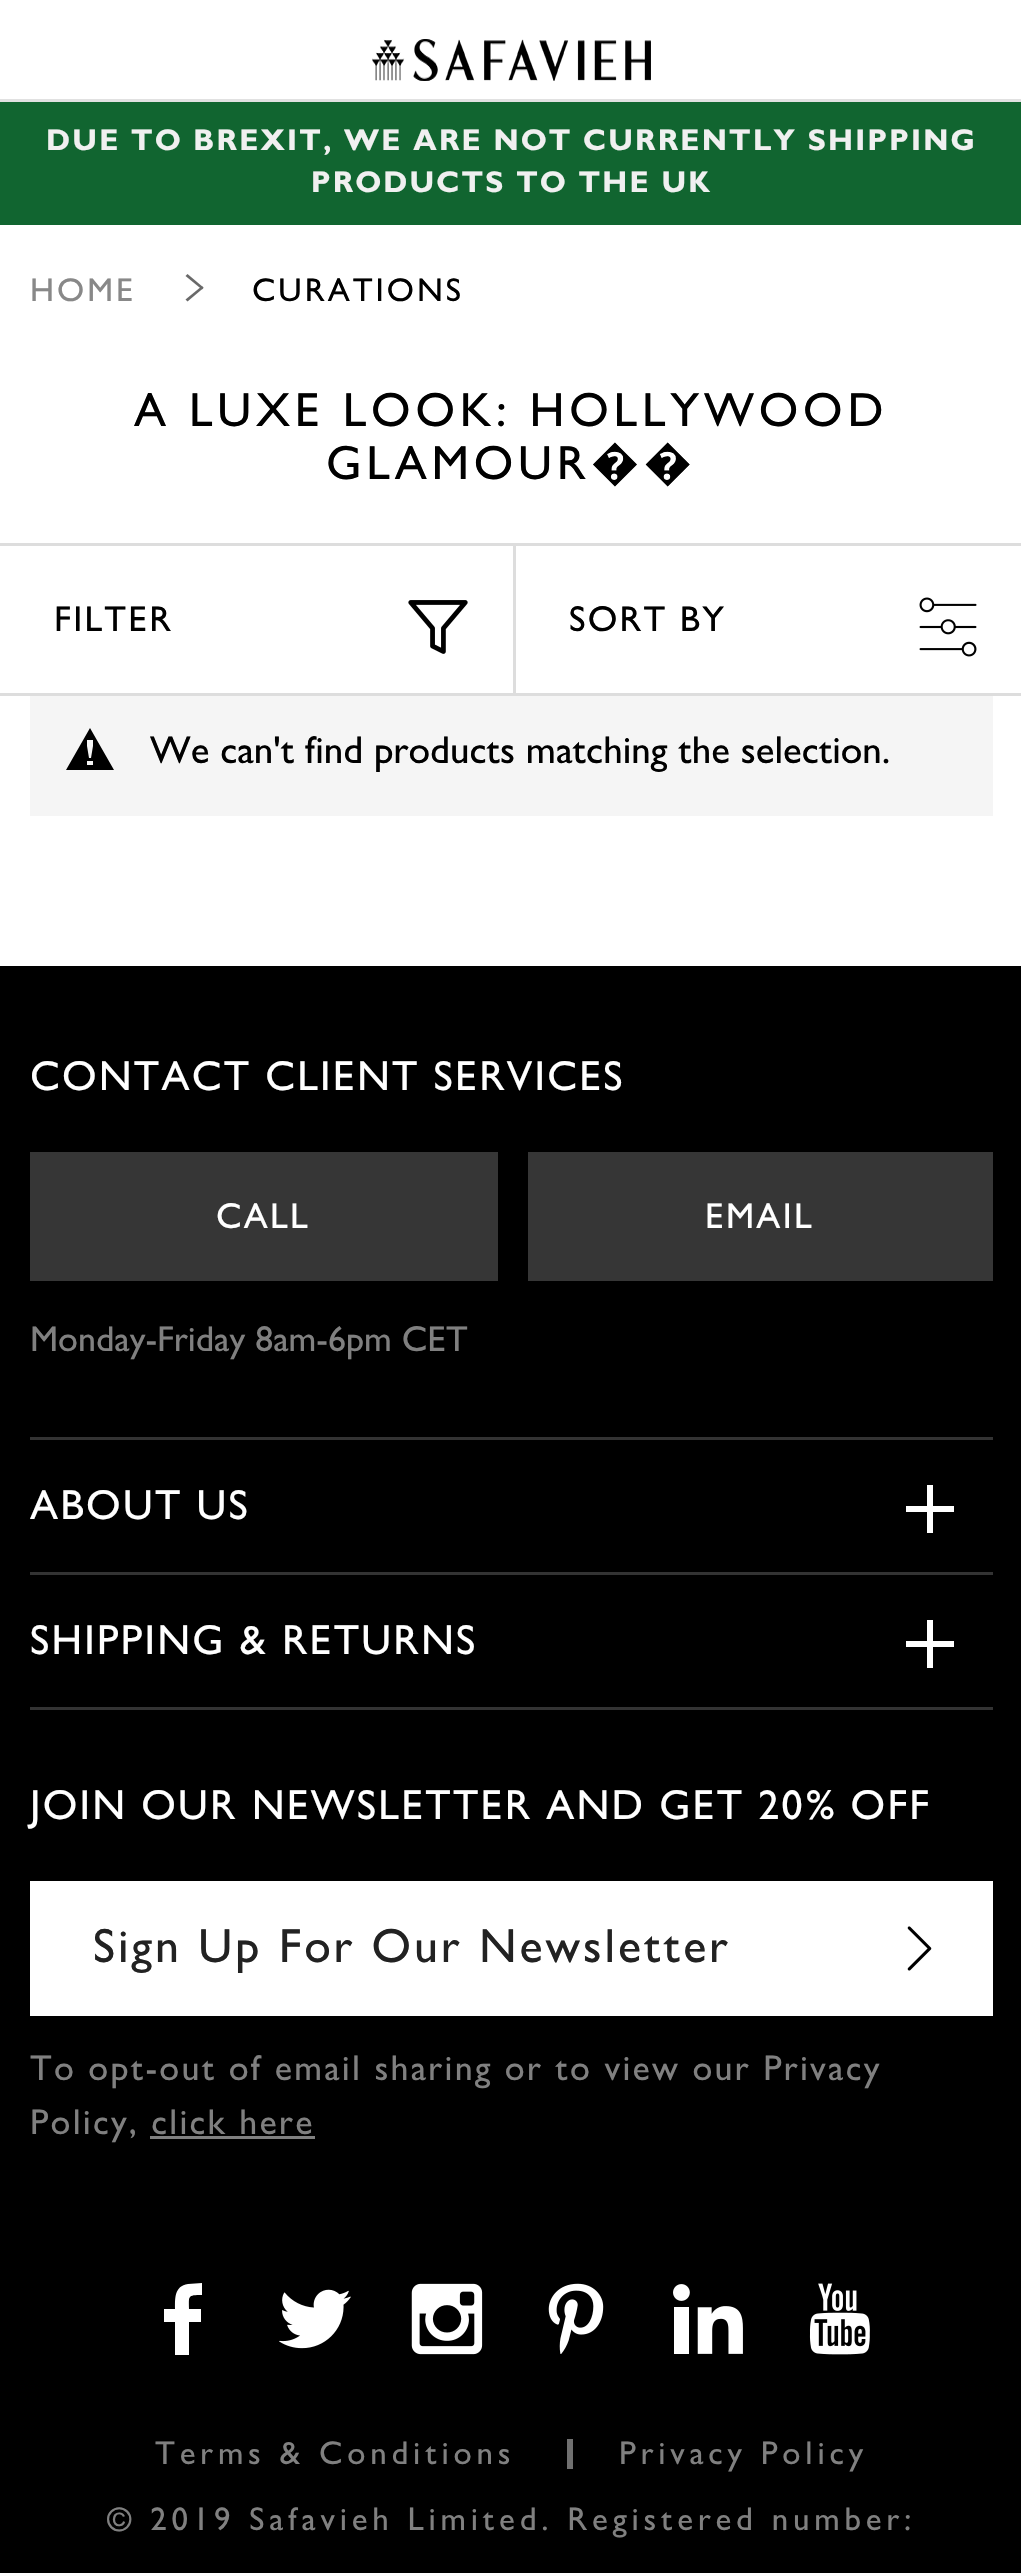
#include "include/core/SkBlurTypes.h"
#include "include/core/SkCanvas.h"
#include "include/core/SkData.h"
#include "include/core/SkFont.h"
#include "include/core/SkFontMgr.h"
#include "include/core/SkImage.h"
#include "include/core/SkMaskFilter.h"
#include "include/core/SkPaint.h"
#include "include/core/SkPathBuilder.h"
#include "include/core/SkTextBlob.h"
#include "include/effects/SkDashPathEffect.h"
#include "include/effects/SkGradientShader.h"
#include "include/utils/SkParsePath.h"

extern sk_sp<SkFontMgr> fontMgr;

void draw(SkCanvas* canvas) {
  SkPaint p;
  p.setAntiAlias(true);
  auto spacedText = [&](const char* s, float x, float y, const SkFont& font, const SkPaint& ink, float letter, float word) {
    std::vector<SkGlyphID> glyphs(font.countText(s, strlen(s), SkTextEncoding::kUTF8));
    std::vector<float> xs(glyphs.size());
    font.textToGlyphs(s, strlen(s), SkTextEncoding::kUTF8, glyphs);
    font.getXPos(glyphs, xs, x);
    float extra = 0;
    for (size_t i = 0; i < glyphs.size(); i++) {
      xs[i] += extra;
      extra += letter + word * (glyphs[i] == font.unicharToGlyph(' '));
    }
    canvas->drawTextBlob(SkTextBlob::MakeFromPosHGlyphs(glyphs, xs, y, font), 0, 0, ink);
  };
  canvas->clear(SK_ColorWHITE);
  p.setColor(SkColorSetRGB(225, 225, 225));
  canvas->drawRect(SkRect::MakeLTRB(0, 99, 1021, 102), p);
  canvas->drawImageRect(SkImages::DeferredFromEncodedData(SkData::MakeFromFileName("images/1.png")), SkRect::MakeLTRB(372, 39, 651, 81), SkSamplingOptions());
  p.setColor(SkColorSetRGB(17, 101, 48));
  canvas->drawRect(SkRect::MakeLTRB(0, 102, 1021, 225), p);
  p.setColor(SkColorSetRGB(105, 105, 105));
  canvas->drawPath(SkPathBuilder().moveTo(203.5f, 287.5f).lineTo(202, 289.5f).lineTo(185.5f, 276).lineTo(187.5f, 274).close().detach(), p);
  canvas->drawPath(SkPathBuilder().moveTo(187.5f, 301.5f).lineTo(185.5f, 299.5f).lineTo(202, 286).lineTo(203.5f, 288).close().detach(), p);
  p.setColor(SkColorSetRGB(221, 221, 221));
  canvas->drawRect(SkRect::MakeLTRB(0, 543, 1021, 546), p);
  canvas->drawRect(SkRect::MakeLTRB(0, 693, 1021, 696), p);
  canvas->drawImageRect(SkImages::DeferredFromEncodedData(SkData::MakeFromFileName("images/2.png")), SkRect::MakeLTRB(408, 600, 468, 654), SkSamplingOptions());
  canvas->drawRect(SkRect::MakeLTRB(513, 543, 516, 696), p);
  canvas->drawImageRect(SkImages::DeferredFromEncodedData(SkData::MakeFromFileName("images/3.png")), SkRect::MakeLTRB(919, 597, 977, 657), SkSamplingOptions());
  p.setColor(SkColorSetRGB(245, 245, 245));
  canvas->drawRect(SkRect::MakeLTRB(30, 696, 993, 816), p);
  p.setColor(SK_ColorBLACK);
  canvas->drawPath(SkPathBuilder().moveTo(90, 728).lineTo(66, 770).lineTo(114, 770).close().moveTo(93, 765).lineTo(87, 765).lineTo(87, 761).lineTo(93, 761).close().moveTo(91, 758).lineTo(89, 758).lineTo(87, 746).lineTo(87, 740).lineTo(93, 740).lineTo(93, 746).close().detach(), p);
  canvas->drawRect(SkRect::MakeLTRB(0, 966, 1021, 2573), p);
  p.setColor(SkColorSetRGB(54, 54, 54));
  canvas->drawRect(SkRect::MakeLTRB(30, 1152, 498, 1281), p);
  canvas->drawRect(SkRect::MakeLTRB(528, 1152, 993, 1281), p);
  p.setColor(SkColorSetRGB(51, 51, 51));
  canvas->drawRect(SkRect::MakeLTRB(30, 1437, 993, 1440), p);
  canvas->drawRect(SkRect::MakeLTRB(30, 1572, 993, 1575), p);
  p.setColor(SK_ColorWHITE);
  canvas->drawRect(SkRect::MakeLTRB(906, 1506, 954, 1512), p);
  canvas->drawRect(SkRect::MakeLTRB(927, 1485, 933, 1533), p);
  p.setColor(SkColorSetRGB(51, 51, 51));
  canvas->drawRect(SkRect::MakeLTRB(30, 1707, 993, 1710), p);
  p.setColor(SK_ColorWHITE);
  canvas->drawRect(SkRect::MakeLTRB(906, 1641, 954, 1647), p);
  canvas->drawRect(SkRect::MakeLTRB(927, 1620, 933, 1668), p);
  canvas->drawRect(SkRect::MakeLTRB(30, 1881, 993, 2016), p);
  canvas->drawImageRect(SkImages::DeferredFromEncodedData(SkData::MakeFromFileName("images/4.png")), SkRect::MakeLTRB(907, 1926, 932, 1971), SkSamplingOptions());
  p.setColor(SkColorSetRGB(128, 128, 128));
  canvas->drawRect(SkRect::MakeLTRB(150, 2136, 315, 2139), p);
  p.setColor(SK_ColorWHITE);
  canvas->drawPath(SkPathBuilder().moveTo(202, 2295).cubicTo(187, 2295, 189, 2296, 189, 2309).lineTo(201, 2309).lineTo(201, 2322).lineTo(189, 2322).lineTo(189, 2355).lineTo(175, 2355).lineTo(175, 2322).lineTo(164, 2322).lineTo(164, 2309).lineTo(175, 2309).cubicTo(175, 2299, 174, 2286, 188, 2284).lineTo(202, 2283).close().detach(), p);
  canvas->drawImageRect(SkImages::DeferredFromEncodedData(SkData::MakeFromFileName("images/5.png")), SkRect::MakeLTRB(279, 2289, 351, 2349), SkSamplingOptions());
  canvas->drawImageRect(SkImages::DeferredFromEncodedData(SkData::MakeFromFileName("images/6.png")), SkRect::MakeLTRB(411, 2283, 483, 2355), SkSamplingOptions());
  canvas->drawImageRect(SkImages::DeferredFromEncodedData(SkData::MakeFromFileName("images/7.png")), SkRect::MakeLTRB(548, 2283, 604, 2354), SkSamplingOptions());
  canvas->drawImageRect(SkImages::DeferredFromEncodedData(SkData::MakeFromFileName("images/8.png")), SkRect::MakeLTRB(673, 2284, 743, 2354), SkSamplingOptions());
  canvas->drawImageRect(SkImages::DeferredFromEncodedData(SkData::MakeFromFileName("images/9.png")), SkRect::MakeLTRB(809, 2283, 870, 2355), SkSamplingOptions());
  p.setColor(SkColorSetRGB(112, 112, 112));
  canvas->drawRect(SkRect::MakeLTRB(567, 2439, 573, 2469), p);
  SkFont font1(fontMgr->matchFamilyStyle("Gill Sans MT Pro", SkFontStyle::Bold()), 30);
  font1.setSubpixel(true);
  p.setColor(SkColorSetRGB(240, 240, 240));
  spacedText("DUE TO BREXIT, WE ARE NOT CURRENTLY SHIPPING", 46, 150, font1, p, 2.25f, 0);
  spacedText("PRODUCTS TO THE UK", 311, 192, font1, p, 2.25f, 0);
  SkFont font2(fontMgr->matchFamilyStyle("Gill Sans MT Pro", SkFontStyle(500, SkFontStyle::kNormal_Width, SkFontStyle::kUpright_Slant)), 33);
  font2.setSubpixel(true);
  p.setColor(SkColorSetRGB(136, 136, 136));
  spacedText("HOME", 30, 301, font2, p, 3, 0);
  p.setColor(SK_ColorBLACK);
  spacedText("CURATIONS", 252, 301, font2, p, 3, 0);
  SkFont font3(fontMgr->matchFamilyStyle("Gill Sans MT Pro", SkFontStyle(500, SkFontStyle::kNormal_Width, SkFontStyle::kUpright_Slant)), 48);
  font3.setSubpixel(true);
  spacedText("A LUXE LOOK: HOLLYWOOD", 134, 426, font3, p, 4.8f, 0);
  spacedText("GLAMOUR", 326, 479, font3, p, 4.8f, 0);
  SkFont font4(fontMgr->matchFamilyStyle("Noto Sans", SkFontStyle::Normal()), 48);
  font4.setSubpixel(true);
  spacedText("��", 591, 479, font4, p, 4.8f, 0);
  SkFont font5(fontMgr->matchFamilyStyle("Gill Sans MT Pro", SkFontStyle(500, SkFontStyle::kNormal_Width, SkFontStyle::kUpright_Slant)), 36);
  font5.setSubpixel(true);
  spacedText("FILTER", 54, 631, font5, p, 2.25f, 0);
  spacedText("SORT BY", 569, 631, font5, p, 2.25f, 0);
  SkFont font6(fontMgr->matchFamilyStyle("Gill Sans MT Pro", SkFontStyle(500, SkFontStyle::kNormal_Width, SkFontStyle::kUpright_Slant)), 39);
  font6.setSubpixel(true);
  canvas->drawString("We can't find products matching the selection.", 150, 763, font6, p);
  SkFont font7(fontMgr->matchFamilyStyle("Gill Sans MT Pro", SkFontStyle(500, SkFontStyle::kNormal_Width, SkFontStyle::kUpright_Slant)), 42);
  font7.setSubpixel(true);
  p.setColor(SK_ColorWHITE);
  spacedText("CONTACT CLIENT SERVICES", 30, 1090, font7, p, 2.25f, 0);
  spacedText("CALL", 216, 1228, font5, p, 2.25f, 0);
  spacedText("EMAIL", 705, 1228, font5, p, 2.25f, 0);
  p.setColor(SkColorSetRGB(128, 128, 128));
  canvas->drawString("Monday-Friday 8am-6pm CET", 30, 1351, font5, p);
  p.setColor(SK_ColorWHITE);
  spacedText("ABOUT US", 30, 1519, font7, p, 2.25f, 0);
  spacedText("SHIPPING & RETURNS", 30, 1654, font7, p, 2.25f, 0);
  spacedText("JOIN OUR NEWSLETTER AND GET 20% OFF", 30, 1819, font7, p, 2.25f, 0);
  p.setColor(SkColorSetRGB(34, 34, 34));
  spacedText("Sign Up For Our Newsletter", 93, 1962, font3, p, 3, 0);
  p.setColor(SkColorSetRGB(128, 128, 128));
  spacedText("To opt-out of email sharing or to view our Privacy", 30, 2080, font5, p, 2.25f, 0);
  spacedText("Policy, click here", 30, 2134, font5, p, 2.25f, 0);
  spacedText("Terms & Conditions", 155, 2464, font2, p, 4.8f, 0);
  spacedText("Privacy Policy", 619, 2464, font2, p, 4.8f, 0);
  spacedText("© 2019 Safavieh Limited. Registered number:", 107, 2530, font2, p, 4.8f, 0);
}
